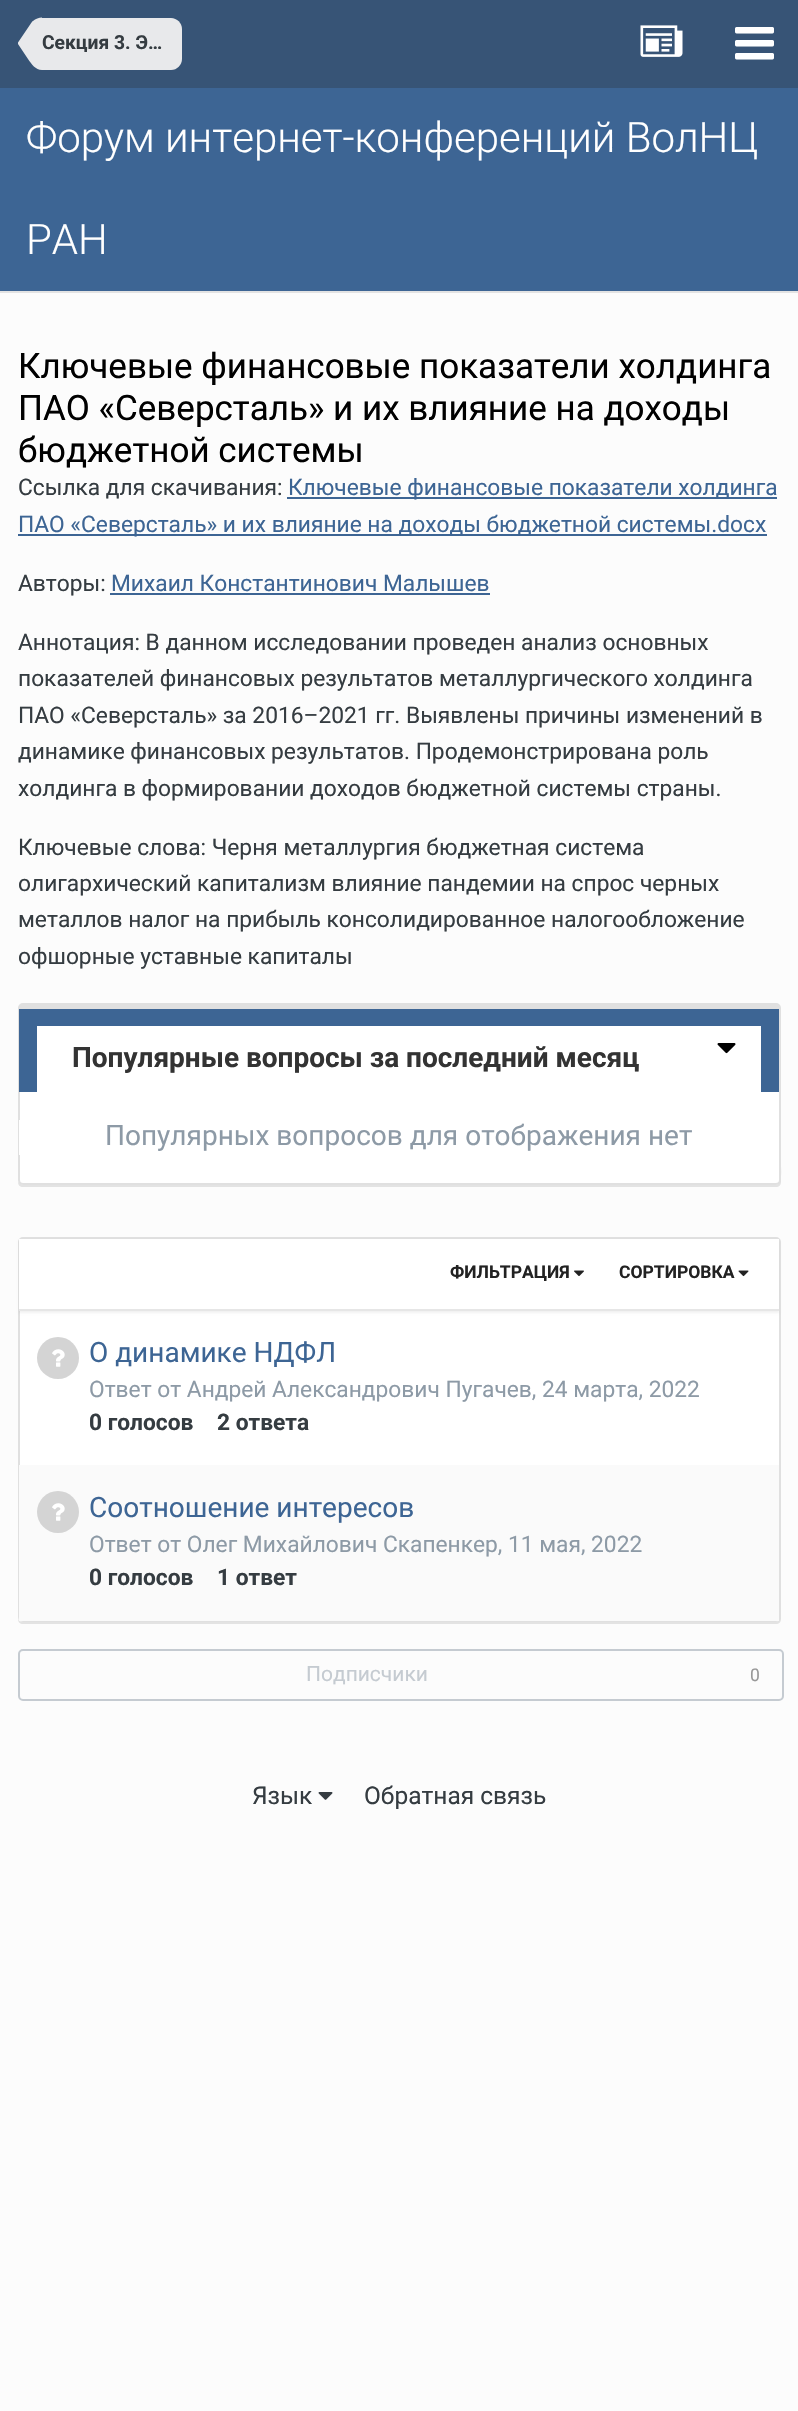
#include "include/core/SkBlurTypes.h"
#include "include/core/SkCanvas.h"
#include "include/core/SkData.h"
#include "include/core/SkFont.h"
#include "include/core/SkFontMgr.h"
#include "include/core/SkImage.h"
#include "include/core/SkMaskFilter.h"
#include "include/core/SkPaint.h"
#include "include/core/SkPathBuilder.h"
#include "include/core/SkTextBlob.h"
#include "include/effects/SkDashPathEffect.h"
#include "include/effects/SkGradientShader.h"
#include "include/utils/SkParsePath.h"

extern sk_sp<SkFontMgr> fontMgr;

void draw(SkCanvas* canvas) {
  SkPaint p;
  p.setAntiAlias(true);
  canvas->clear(SkColorSetRGB(252, 252, 252));
  p.setColor(SkColorSetRGB(227, 227, 227));
  canvas->drawRect(SkRect::MakeLTRB(0, 291, 798, 293), p);
  p.setColor(SkColorSetRGB(55, 84, 118));
  canvas->drawRect(SkRect::MakeLTRB(0, 0, 798, 88), p);
  p.setColor(SkColorSetRGB(232, 233, 235));
  canvas->drawPath(SkPathBuilder().moveTo(42, 18).lineTo(171, 18).cubicTo(177, 18, 182, 23, 182, 29).lineTo(182, 59).cubicTo(182, 65, 177, 70, 171, 70).lineTo(42, 70).close().detach(), p);
  canvas->drawPath(SkPathBuilder().moveTo(18, 44).lineTo(42, 44).lineTo(42, 70).cubicTo(35.5f, 70, 31.5f, 64, 28, 59).close().moveTo(42, 17.5f).lineTo(42, 44).lineTo(18, 44).lineTo(18, 42.5f).lineTo(30.5f, 24).cubicTo(32, 22, 31.5f, 22, 33, 21).cubicTo(35.5f, 19, 39, 17.5f, 42, 17.5f).close().detach(), p);
  canvas->drawImageRect(SkImages::DeferredFromEncodedData(SkData::MakeFromFileName("images/1.png")), SkRect::MakeLTRB(640, 25, 683, 57), SkSamplingOptions());
  canvas->drawImageRect(SkImages::DeferredFromEncodedData(SkData::MakeFromFileName("images/2.png")), SkRect::MakeLTRB(735, 27, 774, 60), SkSamplingOptions());
  p.setColor(SkColorSetRGB(61, 101, 148));
  canvas->drawRect(SkRect::MakeLTRB(0, 88, 798, 291), p);
  canvas->drawRect(SkRect::MakeLTRB(287, 497, 777, 499), p);
  canvas->drawRect(SkRect::MakeLTRB(18, 534, 767, 536), p);
  canvas->drawRect(SkRect::MakeLTRB(110, 593, 490, 595), p);
  p.setColor(SkColorSetRGB(227, 227, 227));
  canvas->drawPath(SkPathBuilder().moveTo(18, 1182).cubicTo(18, 1185, 20, 1187, 23, 1187).lineTo(776, 1187).cubicTo(779, 1187, 781, 1185, 781, 1182).lineTo(781, 1010).lineTo(780, 1008).lineTo(780, 1151).cubicTo(780, 1162, 785, 1185, 775, 1185).lineTo(23, 1185).lineTo(21, 1184).close().detach(), p);
  p.setColor(SK_ColorWHITE);
  canvas->drawRoundRect(SkRect::MakeLTRB(19, 1004, 780, 1184), 4, 4, p);
  p.setStyle(SkPaint::kStroke_Style);
  p.setStrokeWidth(2);
  p.setColor(SkColorSetRGB(224, 224, 224));
  canvas->drawRoundRect(SkRect::MakeLTRB(19, 1004, 780, 1184), 4, 4, p);
  p.setStyle(SkPaint::kFill_Style);
  p.setColor(SkColorSetRGB(61, 101, 148));
  canvas->drawRect(SkRect::MakeLTRB(19, 1009, 779, 1092), p);
  p.setColor(SkColorSetRGB(224, 224, 224));
  canvas->drawRect(SkRect::MakeLTRB(19, 1005, 779, 1009), p);
  p.setColor(SK_ColorWHITE);
  canvas->drawRect(SkRect::MakeLTRB(37, 1026, 761, 1092), p);
  canvas->drawImageRect(SkImages::DeferredFromEncodedData(SkData::MakeFromFileName("images/3.png")), SkRect::MakeLTRB(717, 1043, 736, 1054), SkSamplingOptions());
  canvas->drawRect(SkRect::MakeLTRB(19, 1120, 20, 1155), p);
  p.setColor(SkColorSetRGB(227, 227, 227));
  canvas->drawPath(SkPathBuilder().moveTo(18, 1619).cubicTo(18, 1622, 20, 1624, 23, 1624).lineTo(776, 1624).cubicTo(779, 1624, 781, 1622, 781, 1619).lineTo(781, 1244).lineTo(780, 1242).lineTo(780, 1617).cubicTo(780, 1620, 778, 1622, 775, 1622).lineTo(23, 1622).cubicTo(21, 1622, 19, 1621, 18, 1619).close().detach(), p);
  p.setColor(SK_ColorWHITE);
  canvas->drawRoundRect(SkRect::MakeLTRB(19, 1238, 780, 1621), 4, 4, p);
  p.setStyle(SkPaint::kStroke_Style);
  p.setColor(SkColorSetRGB(224, 224, 224));
  canvas->drawRoundRect(SkRect::MakeLTRB(19, 1238, 780, 1621), 4, 4, p);
  p.setStyle(SkPaint::kFill_Style);
  p.setColor(SkColorSetARGB(13, 0, 0, 0));
  p.setMaskFilter(SkMaskFilter::MakeBlur(kNormal_SkBlurStyle, 1));
  canvas->drawRect(SkRect::MakeLTRB(19, 1241, 779, 1313), p);
  p.setMaskFilter(nullptr);
  p.setColor(SK_ColorWHITE);
  canvas->drawRect(SkRect::MakeLTRB(19, 1239, 779, 1309), p);
  p.setColor(SkColorSetRGB(230, 230, 230));
  canvas->drawRect(SkRect::MakeLTRB(19, 1309, 779, 1311), p);
  canvas->drawImageRect(SkImages::DeferredFromEncodedData(SkData::MakeFromFileName("images/4.png")), SkRect::MakeLTRB(574, 1270, 584, 1276), SkSamplingOptions());
  canvas->drawImageRect(SkImages::DeferredFromEncodedData(SkData::MakeFromFileName("images/5.png")), SkRect::MakeLTRB(738, 1270, 749, 1277), SkSamplingOptions());
  p.setColor(SkColorSetRGB(212, 212, 212));
  canvas->drawCircle(58, 1358, 21, p);
  canvas->drawImageRect(SkImages::DeferredFromEncodedData(SkData::MakeFromFileName("images/6.png")), SkRect::MakeLTRB(52, 1349, 65, 1367), SkSamplingOptions());
  p.setColor(SkColorSetRGB(250, 250, 250));
  canvas->drawRect(SkRect::MakeLTRB(19, 1465, 779, 1621), p);
  p.setColor(SkColorSetRGB(212, 212, 212));
  canvas->drawCircle(58, 1512, 21, p);
  canvas->drawImageRect(SkImages::DeferredFromEncodedData(SkData::MakeFromFileName("images/6.png")), SkRect::MakeLTRB(52, 1503, 65, 1521), SkSamplingOptions());
  p.setStyle(SkPaint::kStroke_Style);
  p.setColor(SkColorSetRGB(197, 203, 209));
  canvas->drawRoundRect(SkRect::MakeLTRB(19, 1650, 783, 1700), 4, 4, p);
  canvas->drawImageRect(SkImages::DeferredFromEncodedData(SkData::MakeFromFileName("images/7.png")), SkRect::MakeLTRB(318, 1792, 333, 1800), SkSamplingOptions());
  SkFont font1(fontMgr->matchFamilyStyle("Roboto", SkFontStyle::Bold()), 19.25f);
  font1.setSubpixel(true);
  p.setStyle(SkPaint::kFill_Style);
  p.setColor(SkColorSetRGB(53, 60, 65));
  canvas->drawString("Секция 3. Э…", 42, 49, font1, p);
  SkFont font2(fontMgr->matchFamilyStyle("Roboto", SkFontStyle(300, SkFontStyle::kNormal_Width, SkFontStyle::kUpright_Slant)), 42);
  font2.setSubpixel(true);
  p.setColor(SK_ColorWHITE);
  canvas->drawString("Форум интернет-конференций ВолНЦ", 26, 152, font2, p);
  canvas->drawString("РАН", 26, 254, font2, p);
  SkFont font3(fontMgr->matchFamilyStyle("Roboto", SkFontStyle::Normal()), 35);
  font3.setSubpixel(true);
  p.setColor(SK_ColorBLACK);
  canvas->drawString("Ключевые финансовые показатели холдинга", 18, 378, font3, p);
  canvas->drawString("ПАО «Северсталь» и их влияние на доходы", 18, 420, font3, p);
  canvas->drawString("бюджетной системы", 18, 462, font3, p);
  SkFont font4(fontMgr->matchFamilyStyle("Roboto", SkFontStyle::Normal()), 22.75f);
  font4.setSubpixel(true);
  p.setColor(SkColorSetRGB(53, 60, 65));
  canvas->drawString("Ссылка для скачивания:", 18, 495, font4, p);
  p.setColor(SkColorSetRGB(61, 101, 148));
  canvas->drawString("Ключевые финансовые показатели холдинга", 288, 495, font4, p);
  canvas->drawString("ПАО «Северсталь» и их влияние на доходы бюджетной системы.docx", 18, 532, font4, p);
  p.setColor(SkColorSetRGB(53, 60, 65));
  canvas->drawString("Авторы:", 18, 591, font4, p);
  p.setColor(SkColorSetRGB(61, 101, 148));
  canvas->drawString("Михаил Константинович Малышев", 111, 591, font4, p);
  p.setColor(SkColorSetRGB(53, 60, 65));
  canvas->drawString("Аннотация: В данном исследовании проведен анализ основных", 18, 650, font4, p);
  canvas->drawString("показателей финансовых результатов металлургического холдинга", 18, 686, font4, p);
  canvas->drawString("ПАО «Северсталь» за 2016–2021 гг. Выявлены причины изменений в", 18, 723, font4, p);
  canvas->drawString("динамике финансовых результатов. Продемонстрирована роль", 18, 759, font4, p);
  canvas->drawString("холдинга в формировании доходов бюджетной системы страны.", 18, 796, font4, p);
  canvas->drawString("Ключевые слова: Черня металлургия бюджетная система", 18, 855, font4, p);
  canvas->drawString("олигархический капитализм влияние пандемии на спрос черных", 18, 891, font4, p);
  canvas->drawString("металлов налог на прибыль консолидированное налогообложение", 18, 927, font4, p);
  canvas->drawString("офшорные уставные капиталы", 18, 964, font4, p);
  SkFont font5(fontMgr->matchFamilyStyle("Roboto", SkFontStyle::Bold()), 28);
  font5.setSubpixel(true);
  p.setColor(SkColorSetRGB(51, 51, 51));
  canvas->drawString("Популярные вопросы за последний месяц", 72, 1067, font5, p);
  SkFont font6(fontMgr->matchFamilyStyle("Roboto", SkFontStyle::Normal()), 28);
  font6.setSubpixel(true);
  p.setColor(SkColorSetRGB(141, 154, 166));
  canvas->drawString("Популярных вопросов для отображения нет", 105, 1145, font6, p);
  SkFont font7(fontMgr->matchFamilyStyle("Roboto", SkFontStyle::Bold()), 17.5f);
  font7.setSubpixel(true);
  p.setColor(SkColorSetRGB(34, 34, 34));
  canvas->drawString("ФИЛЬТРАЦИЯ", 450, 1278, font7, p);
  canvas->drawString("СОРТИРОВКА", 619, 1278, font7, p);
  p.setColor(SkColorSetRGB(61, 101, 148));
  canvas->drawString("О динамике НДФЛ", 89, 1362, font6, p);
  p.setColor(SkColorSetRGB(141, 154, 166));
  canvas->drawString("Ответ от Андрей Александрович Пугачев, 24 марта, 2022", 89, 1397, font4, p);
  SkFont font8(fontMgr->matchFamilyStyle("Roboto", SkFontStyle::Bold()), 22.75f);
  font8.setSubpixel(true);
  p.setColor(SkColorSetRGB(53, 60, 65));
  canvas->drawString("0 голосов", 89, 1430, font8, p);
  canvas->drawString("2 ответа", 217, 1430, font8, p);
  p.setColor(SkColorSetRGB(61, 101, 148));
  canvas->drawString("Соотношение интересов", 89, 1517, font6, p);
  p.setColor(SkColorSetRGB(141, 154, 166));
  canvas->drawString("Ответ от Олег Михайлович Скапенкер, 11 мая, 2022", 89, 1552, font4, p);
  p.setColor(SkColorSetRGB(53, 60, 65));
  canvas->drawString("0 голосов", 89, 1585, font8, p);
  canvas->drawString("1 ответ", 217, 1585, font8, p);
  SkFont font9(fontMgr->matchFamilyStyle("Roboto", SkFontStyle::Normal()), 21);
  font9.setSubpixel(true);
  p.setColor(SkColorSetRGB(197, 203, 209));
  canvas->drawString("Подписчики", 306, 1681, font9, p);
  SkFont font10(fontMgr->matchFamilyStyle("Roboto", SkFontStyle::Normal()), 17.5f);
  font10.setSubpixel(true);
  p.setColor(SkColorSetRGB(152, 152, 152));
  canvas->drawString("0", 750, 1681, font10, p);
  SkFont font11(fontMgr->matchFamilyStyle("Roboto", SkFontStyle::Normal()), 24.5f);
  font11.setSubpixel(true);
  p.setColor(SkColorSetRGB(53, 60, 65));
  canvas->drawString("Язык", 252, 1804, font11, p);
  canvas->drawString("Обратная связь", 364, 1804, font11, p);
}
